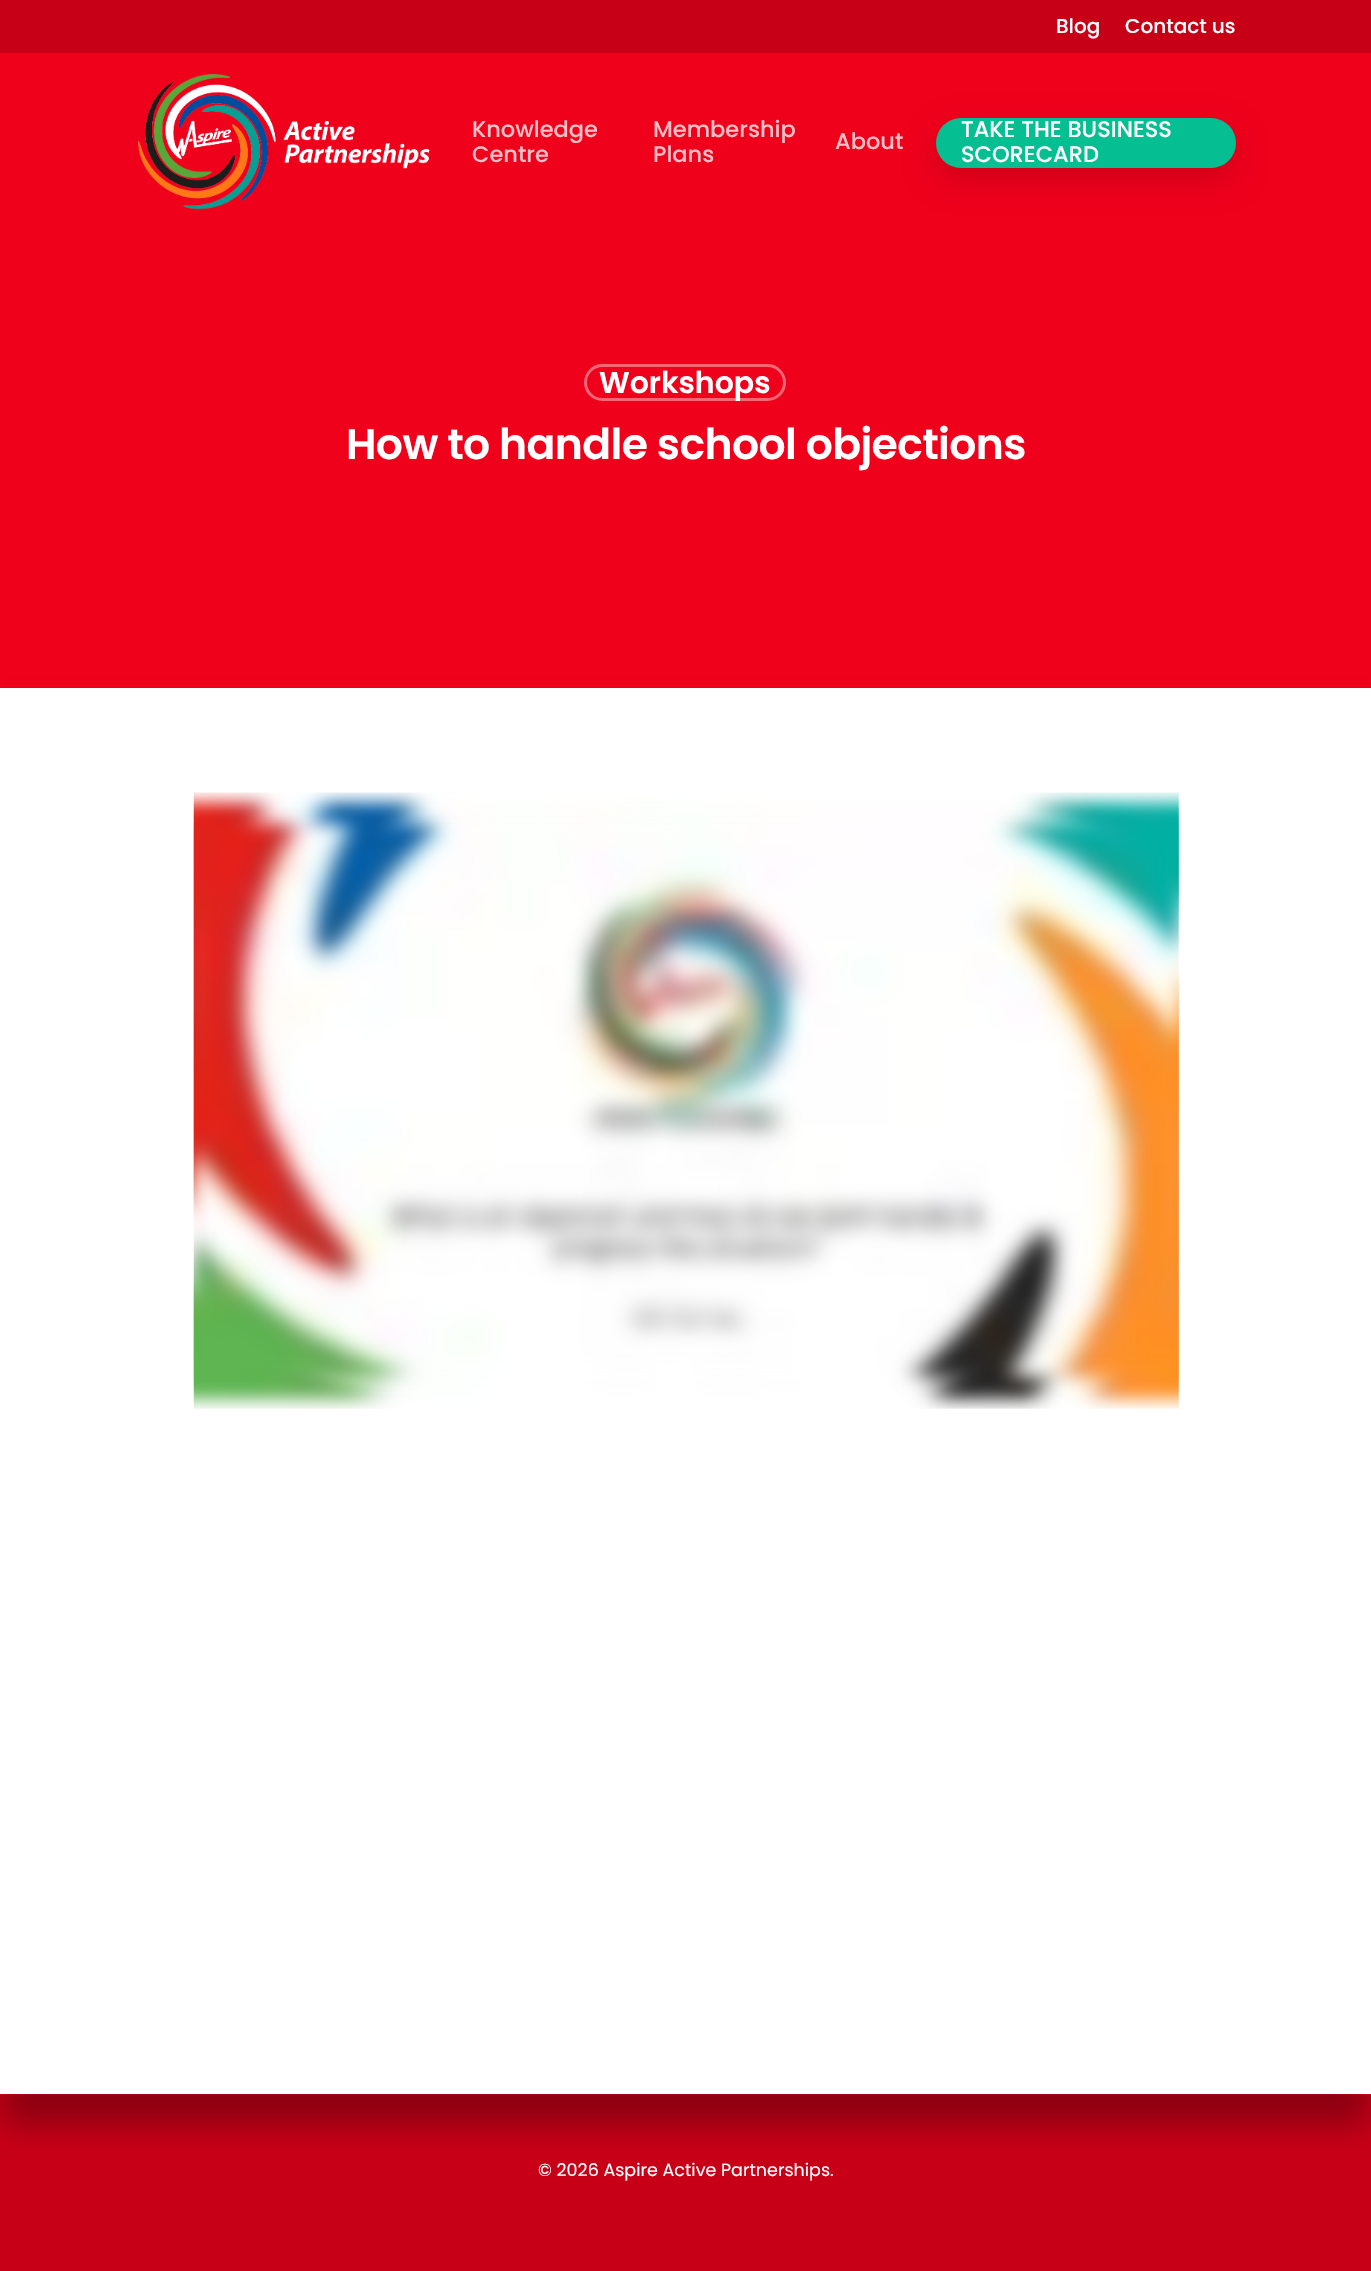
#include "include/core/SkBlurTypes.h"
#include "include/core/SkCanvas.h"
#include "include/core/SkData.h"
#include "include/core/SkFont.h"
#include "include/core/SkFontMgr.h"
#include "include/core/SkImage.h"
#include "include/core/SkMaskFilter.h"
#include "include/core/SkPaint.h"
#include "include/core/SkPathBuilder.h"
#include "include/core/SkTextBlob.h"
#include "include/effects/SkDashPathEffect.h"
#include "include/effects/SkGradientShader.h"
#include "include/utils/SkParsePath.h"

extern sk_sp<SkFontMgr> fontMgr;

void draw(SkCanvas* canvas) {
  SkPaint p;
  p.setAntiAlias(true);
  auto spacedText = [&](const char* s, float x, float y, const SkFont& font, const SkPaint& ink, float letter, float word) {
    std::vector<SkGlyphID> glyphs(font.countText(s, strlen(s), SkTextEncoding::kUTF8));
    std::vector<float> xs(glyphs.size());
    font.textToGlyphs(s, strlen(s), SkTextEncoding::kUTF8, glyphs);
    font.getXPos(glyphs, xs, x);
    float extra = 0;
    for (size_t i = 0; i < glyphs.size(); i++) {
      xs[i] += extra;
      extra += letter + word * (glyphs[i] == font.unicharToGlyph(' '));
    }
    canvas->drawTextBlob(SkTextBlob::MakeFromPosHGlyphs(glyphs, xs, y, font), 0, 0, ink);
  };
  canvas->clear(SkColorSetRGB(239, 0, 27));
  p.setColor(SkColorSetRGB(200, 0, 23));
  canvas->drawRect(SkRect::MakeLTRB(0, 0, 1371, 53), p);
  canvas->drawImageRect(SkImages::DeferredFromEncodedData(SkData::MakeFromFileName("images/1.png")), SkRect::MakeLTRB(138, 74, 430, 210), SkSamplingOptions());
  p.setColor(SkColorSetARGB(33, 0, 0, 0));
  p.setMaskFilter(SkMaskFilter::MakeBlur(kNormal_SkBlurStyle, 15.5f));
  canvas->drawRoundRect(SkRect::MakeLTRB(936, 130, 1236, 180), 25, 25, p);
  p.setMaskFilter(nullptr);
  p.setColor(SkColorSetRGB(5, 191, 147));
  canvas->drawRoundRect(SkRect::MakeLTRB(936, 118, 1236, 168), 25, 25, p);
  p.setStyle(SkPaint::kStroke_Style);
  p.setStrokeWidth(3);
  p.setColor(SkColorSetRGB(245, 102, 118));
  canvas->drawRoundRect(SkRect::MakeLTRB(585.5f, 365.5f, 784.5f, 399.5f), 17, 17, p);
  p.setStyle(SkPaint::kFill_Style);
  p.setColor(SkColorSetRGB(200, 0, 23));
  canvas->drawRect(SkRect::MakeLTRB(0, 2095, 1371, 2271), p);
  p.setColor(SkColorSetARGB(77, 0, 0, 0));
  p.setMaskFilter(SkMaskFilter::MakeBlur(kNormal_SkBlurStyle, 15.5f));
  canvas->drawRect(SkRect::MakeLTRB(3, 724, 1369, 2125), p);
  p.setMaskFilter(nullptr);
  p.setColor(SK_ColorWHITE);
  canvas->drawRect(SkRect::MakeLTRB(0, 688, 1371, 2094), p);
  canvas->drawImageRect(SkImages::DeferredFromEncodedData(SkData::MakeFromFileName("images/2.png")), SkRect::MakeLTRB(193, 792, 1179, 1409), SkSamplingOptions());
  SkFont font1(fontMgr->matchFamilyStyle("Poppins", SkFontStyle(500, SkFontStyle::kNormal_Width, SkFontStyle::kUpright_Slant)), 20);
  font1.setSubpixel(true);
  canvas->drawString("Blog", 1056, 33, font1, p);
  canvas->drawString("Contact us", 1125, 33, font1, p);
  SkFont font2(fontMgr->matchFamilyStyle("Poppins", SkFontStyle(500, SkFontStyle::kNormal_Width, SkFontStyle::kUpright_Slant)), 22.5f);
  font2.setSubpixel(true);
  p.setColor(SkColorSetRGB(251, 191, 198));
  canvas->drawString("Knowledge", 472, 137, font2, p);
  canvas->drawString("Centre", 472, 162, font2, p);
  canvas->drawString("Membership", 653, 137, font2, p);
  canvas->drawString("Plans", 653, 162, font2, p);
  canvas->drawString("About", 835, 149, font2, p);
  p.setColor(SK_ColorWHITE);
  canvas->drawString("TAKE THE BUSINESS", 961, 137, font2, p);
  canvas->drawString("SCORECARD", 961, 162, font2, p);
  SkFont font3(fontMgr->matchFamilyStyle("Poppins", SkFontStyle(600, SkFontStyle::kNormal_Width, SkFontStyle::kUpright_Slant)), 30);
  font3.setSubpixel(true);
  canvas->drawString("Workshops", 599, 393, font3, p);
  SkFont font4(fontMgr->matchFamilyStyle("Poppins", SkFontStyle(600, SkFontStyle::kNormal_Width, SkFontStyle::kUpright_Slant)), 42.5f);
  font4.setSubpixel(true);
  spacedText("How to handle school objections", 346, 459, font4, p, -0.6f, 0);
  SkFont font5(fontMgr->matchFamilyStyle("Poppins", SkFontStyle::Normal()), 17.5f);
  font5.setSubpixel(true);
  canvas->drawString("© 2026 Aspire Active Partnerships.", 538, 2176, font5, p);
}
